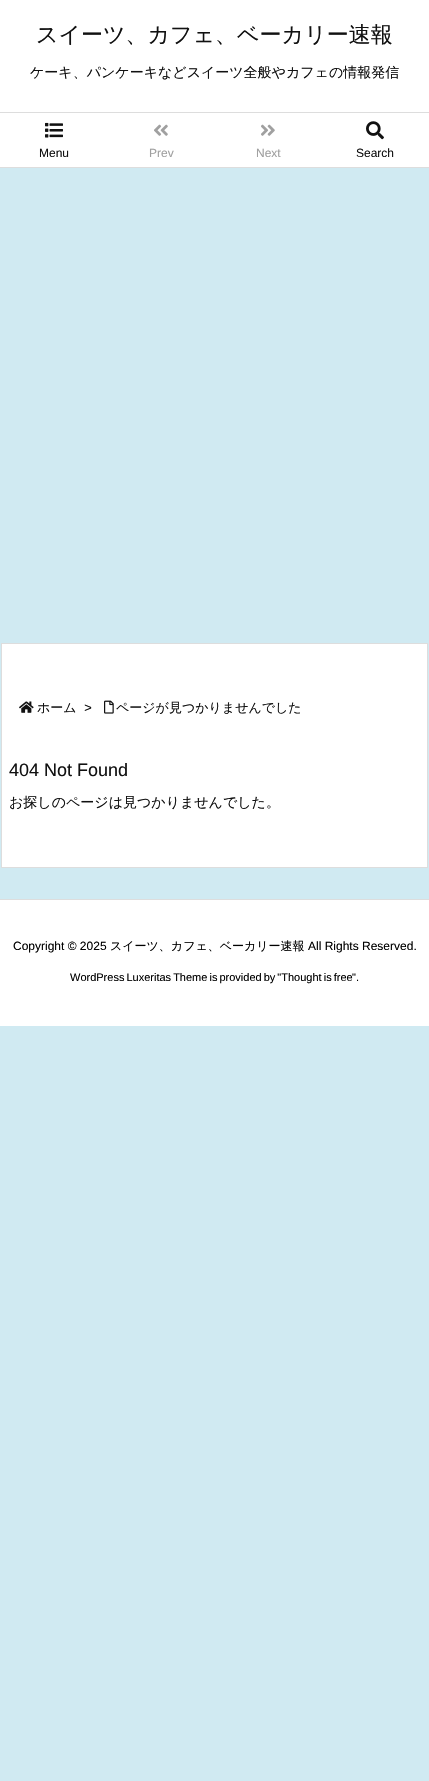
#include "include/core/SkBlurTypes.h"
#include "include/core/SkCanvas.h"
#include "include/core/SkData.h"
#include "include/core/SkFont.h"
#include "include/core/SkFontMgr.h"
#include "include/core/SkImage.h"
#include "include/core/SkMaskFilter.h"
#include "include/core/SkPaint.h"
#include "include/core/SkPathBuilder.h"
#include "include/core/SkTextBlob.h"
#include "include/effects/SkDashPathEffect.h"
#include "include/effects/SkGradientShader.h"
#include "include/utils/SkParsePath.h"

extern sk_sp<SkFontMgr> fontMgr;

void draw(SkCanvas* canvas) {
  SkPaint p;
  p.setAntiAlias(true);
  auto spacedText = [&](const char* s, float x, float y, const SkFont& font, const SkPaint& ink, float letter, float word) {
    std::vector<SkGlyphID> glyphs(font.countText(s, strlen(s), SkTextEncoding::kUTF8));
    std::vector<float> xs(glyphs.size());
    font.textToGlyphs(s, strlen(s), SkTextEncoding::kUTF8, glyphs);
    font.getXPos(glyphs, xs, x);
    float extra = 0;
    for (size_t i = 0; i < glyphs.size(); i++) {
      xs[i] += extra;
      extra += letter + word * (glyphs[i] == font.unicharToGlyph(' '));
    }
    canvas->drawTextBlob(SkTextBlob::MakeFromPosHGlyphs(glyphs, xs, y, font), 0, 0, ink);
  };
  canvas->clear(SkColorSetRGB(208, 234, 242));
  p.setColor(SK_ColorWHITE);
  canvas->drawRect(SkRect::MakeLTRB(0, 0, 429, 167), p);
  p.setColor(SkColorSetRGB(221, 221, 221));
  canvas->drawRect(SkRect::MakeLTRB(0, 112, 429, 113), p);
  canvas->drawRect(SkRect::MakeLTRB(0, 167, 429, 168), p);
  canvas->drawImageRect(SkImages::DeferredFromEncodedData(SkData::MakeFromFileName("images/1.png")), SkRect::MakeLTRB(45, 122, 63, 138), SkSamplingOptions());
  canvas->drawImageRect(SkImages::DeferredFromEncodedData(SkData::MakeFromFileName("images/2.png")), SkRect::MakeLTRB(154, 124, 168, 136), SkSamplingOptions());
  canvas->drawImageRect(SkImages::DeferredFromEncodedData(SkData::MakeFromFileName("images/3.png")), SkRect::MakeLTRB(261, 124, 275, 136), SkSamplingOptions());
  canvas->drawImageRect(SkImages::DeferredFromEncodedData(SkData::MakeFromFileName("images/4.png")), SkRect::MakeLTRB(366, 121, 384, 140), SkSamplingOptions());
  p.setColor(SK_ColorWHITE);
  canvas->drawRect(SkRect::MakeLTRB(1.5f, 643.5f, 427.5f, 867.5f), p);
  p.setStyle(SkPaint::kStroke_Style);
  p.setStrokeWidth(1);
  p.setColor(SkColorSetRGB(221, 221, 221));
  canvas->drawRect(SkRect::MakeLTRB(1.5f, 643.5f, 427.5f, 867.5f), p);
  canvas->drawImageRect(SkImages::DeferredFromEncodedData(SkData::MakeFromFileName("images/5.png")), SkRect::MakeLTRB(19, 701, 34, 713), SkSamplingOptions());
  canvas->drawImageRect(SkImages::DeferredFromEncodedData(SkData::MakeFromFileName("images/6.png")), SkRect::MakeLTRB(104, 700, 114, 714), SkSamplingOptions());
  p.setStyle(SkPaint::kFill_Style);
  p.setColor(SK_ColorWHITE);
  canvas->drawRect(SkRect::MakeLTRB(0, 900, 429, 1026), p);
  p.setColor(SkColorSetRGB(221, 221, 221));
  canvas->drawRect(SkRect::MakeLTRB(0, 899, 429, 900), p);
  SkFont font1(fontMgr->matchFamilyStyle("WenQuanYi Zen Hei", SkFontStyle(500, SkFontStyle::kNormal_Width, SkFontStyle::kUpright_Slant)), 22);
  font1.setSubpixel(true);
  p.setColor(SkColorSetRGB(17, 17, 17));
  canvas->drawString("スイーツ、カフェ、ベーカリー速報", 36, 42, font1, p);
  SkFont font2(fontMgr->matchFamilyStyle("WenQuanYi Zen Hei", SkFontStyle(500, SkFontStyle::kNormal_Width, SkFontStyle::kUpright_Slant)), 14);
  font2.setSubpixel(true);
  canvas->drawString("ケーキ、パンケーキなどスイーツ全般やカフェの情報発信", 30, 77, font2, p);
  SkFont font3(fontMgr->matchFamilyStyle("Liberation Sans", SkFontStyle::Normal()), 12);
  font3.setSubpixel(true);
  canvas->drawString("Menu", 39, 157, font3, p);
  p.setColor(SkColorSetRGB(160, 160, 160));
  canvas->drawString("Prev", 149, 157, font3, p);
  canvas->drawString("Next", 256, 157, font3, p);
  p.setColor(SkColorSetRGB(17, 17, 17));
  canvas->drawString("Search", 356, 157, font3, p);
  SkFont font4(fontMgr->matchFamilyStyle("WenQuanYi Zen Hei", SkFontStyle(500, SkFontStyle::kNormal_Width, SkFontStyle::kUpright_Slant)), 13);
  font4.setSubpixel(true);
  canvas->drawString("ホーム", 37, 712, font4, p);
  SkFont font5(fontMgr->matchFamilyStyle("Liberation Sans", SkFontStyle::Italic()), 13);
  font5.setSubpixel(true);
  canvas->drawString(">", 84, 712, font5, p);
  canvas->drawString("ページが見つかりませんでした", 116, 712, font4, p);
  SkFont font6(fontMgr->matchFamilyStyle("Liberation Sans", SkFontStyle::Normal()), 18);
  font6.setSubpixel(true);
  canvas->drawString("404 Not Found", 9, 776, font6, p);
  canvas->drawString("お探しのページは見つかりませんでした。", 9, 807, font2, p);
  p.setColor(SK_ColorBLACK);
  canvas->drawString("Copyright © 2025", 13, 950, font3, p);
  SkFont font7(fontMgr->matchFamilyStyle("WenQuanYi Zen Hei", SkFontStyle(500, SkFontStyle::kNormal_Width, SkFontStyle::kUpright_Slant)), 12);
  font7.setSubpixel(true);
  canvas->drawString("スイーツ、カフェ、ベーカリー速報", 110, 950, font7, p);
  canvas->drawString("All Rights Reserved.", 308, 950, font3, p);
  SkFont font8(fontMgr->matchFamilyStyle("Liberation Sans", SkFontStyle::Normal()), 11);
  font8.setSubpixel(true);
  spacedText("WordPress Luxeritas Theme is provided by \"Thought is free", 70, 981, font8, p, 0, -1);
  canvas->drawString("\".", 352, 981, font8, p);
}
